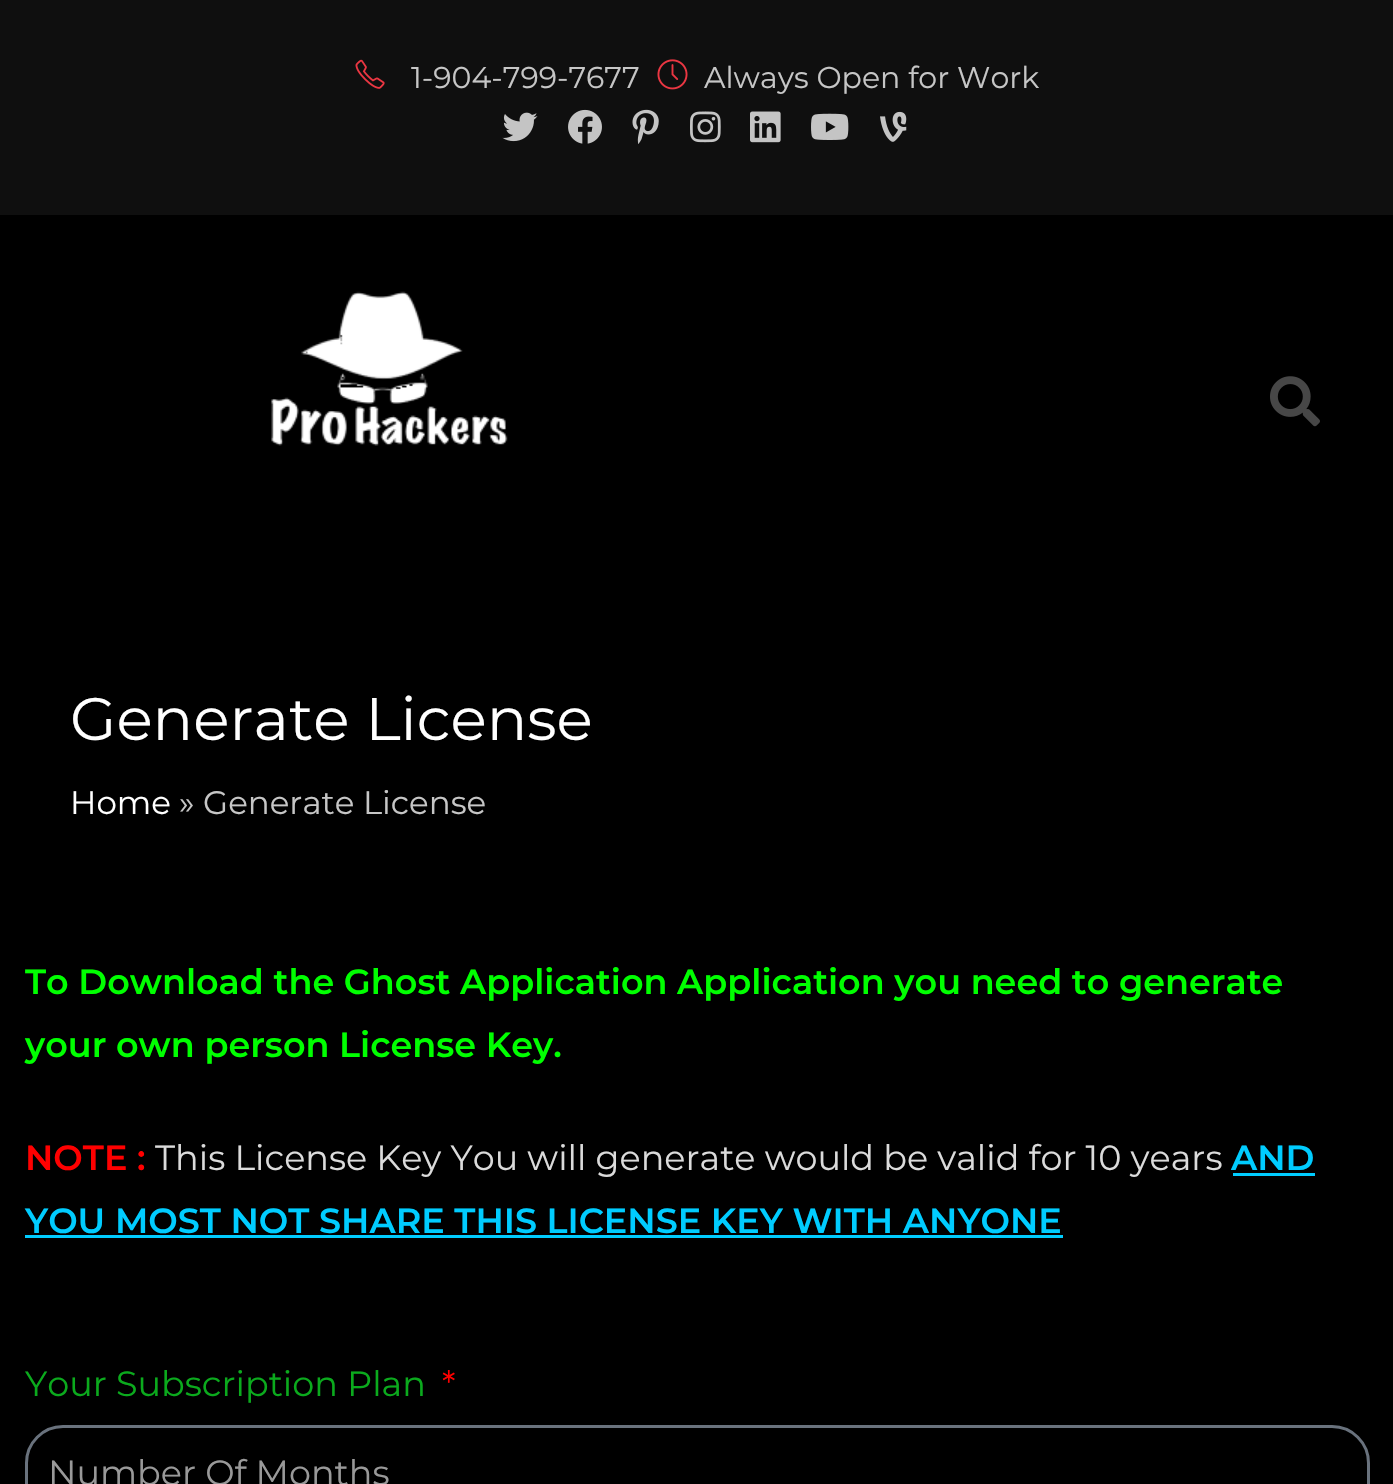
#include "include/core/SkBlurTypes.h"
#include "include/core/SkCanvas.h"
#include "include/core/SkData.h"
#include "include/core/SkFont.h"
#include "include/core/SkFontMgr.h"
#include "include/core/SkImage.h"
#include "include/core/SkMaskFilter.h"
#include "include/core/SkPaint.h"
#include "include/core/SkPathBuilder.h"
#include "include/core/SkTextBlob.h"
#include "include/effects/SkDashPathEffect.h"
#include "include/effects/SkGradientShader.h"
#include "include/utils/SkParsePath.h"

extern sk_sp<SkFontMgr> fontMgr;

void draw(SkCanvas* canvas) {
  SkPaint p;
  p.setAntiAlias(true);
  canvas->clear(SK_ColorBLACK);
  p.setColor(SkColorSetRGB(15, 15, 15));
  canvas->drawRect(SkRect::MakeLTRB(0, 0, 1393, 215), p);
  canvas->drawImageRect(SkImages::DeferredFromEncodedData(SkData::MakeFromFileName("images/1.png")), SkRect::MakeLTRB(355, 59, 385, 89), SkSamplingOptions());
  canvas->drawImageRect(SkImages::DeferredFromEncodedData(SkData::MakeFromFileName("images/2.png")), SkRect::MakeLTRB(657, 59, 688, 90), SkSamplingOptions());
  canvas->drawImageRect(SkImages::DeferredFromEncodedData(SkData::MakeFromFileName("images/3.png")), SkRect::MakeLTRB(502, 112, 538, 142), SkSamplingOptions());
  canvas->drawImageRect(SkImages::DeferredFromEncodedData(SkData::MakeFromFileName("images/4.png")), SkRect::MakeLTRB(568, 109, 602, 144), SkSamplingOptions());
  canvas->drawImageRect(SkImages::DeferredFromEncodedData(SkData::MakeFromFileName("images/5.png")), SkRect::MakeLTRB(632, 109, 659, 144), SkSamplingOptions());
  canvas->drawImageRect(SkImages::DeferredFromEncodedData(SkData::MakeFromFileName("images/6.png")), SkRect::MakeLTRB(690, 111, 721, 143), SkSamplingOptions());
  canvas->drawImageRect(SkImages::DeferredFromEncodedData(SkData::MakeFromFileName("images/7.png")), SkRect::MakeLTRB(750, 111, 781, 143), SkSamplingOptions());
  canvas->drawImageRect(SkImages::DeferredFromEncodedData(SkData::MakeFromFileName("images/8.png")), SkRect::MakeLTRB(811, 113, 849, 140), SkSamplingOptions());
  canvas->drawImageRect(SkImages::DeferredFromEncodedData(SkData::MakeFromFileName("images/9.png")), SkRect::MakeLTRB(880, 111, 907, 142), SkSamplingOptions());
  canvas->drawImageRect(SkImages::DeferredFromEncodedData(SkData::MakeFromFileName("images/10.png")), SkRect::MakeLTRB(271, 291, 508, 446), SkSamplingOptions());
  canvas->drawImageRect(SkImages::DeferredFromEncodedData(SkData::MakeFromFileName("images/11.png")), SkRect::MakeLTRB(1270, 376, 1320, 427), SkSamplingOptions());
  p.setColor(SkColorSetRGB(0, 204, 255));
  canvas->drawRect(SkRect::MakeLTRB(1233, 1173, 1315, 1176), p);
  canvas->drawRect(SkRect::MakeLTRB(25, 1235, 1063, 1238), p);
  p.setStyle(SkPaint::kStroke_Style);
  p.setStrokeWidth(3);
  p.setColor(SkColorSetRGB(105, 114, 125));
  canvas->drawRoundRect(SkRect::MakeLTRB(26.5f, 1426.5f, 1368.5f, 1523.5f), 36.5f, 36.5f, p);
  SkFont font1(fontMgr->matchFamilyStyle("Montserrat", SkFontStyle::Normal()), 30);
  font1.setSubpixel(true);
  p.setStyle(SkPaint::kFill_Style);
  p.setColor(SkColorSetRGB(198, 198, 198));
  canvas->drawString("1-904-799-7677", 411, 88, font1, p);
  canvas->drawString("Always Open for Work", 704, 88, font1, p);
  SkFont font2(fontMgr->matchFamilyStyle("Montserrat", SkFontStyle::Normal()), 60);
  font2.setSubpixel(true);
  p.setColor(SK_ColorWHITE);
  canvas->drawString("Generate License", 70, 740, font2, p);
  SkFont font3(fontMgr->matchFamilyStyle("Montserrat", SkFontStyle::Normal()), 32.5f);
  font3.setSubpixel(true);
  canvas->drawString("Home", 70, 814, font3, p);
  p.setColor(SkColorSetRGB(198, 198, 198));
  canvas->drawString("» Generate License", 179, 814, font3, p);
  SkFont font4(fontMgr->matchFamilyStyle("Montserrat", SkFontStyle(600, SkFontStyle::kNormal_Width, SkFontStyle::kUpright_Slant)), 35);
  font4.setSubpixel(true);
  p.setColor(SkColorSetRGB(0, 255, 0));
  canvas->drawString("To Download the Ghost Application Application you need to generate", 25, 994, font4, p);
  canvas->drawString("your own person License Key.", 25, 1057, font4, p);
  p.setColor(SkColorSetRGB(255, 0, 0));
  canvas->drawString("NOTE :", 25, 1170, font4, p);
  SkFont font5(fontMgr->matchFamilyStyle("Montserrat", SkFontStyle::Normal()), 35);
  font5.setSubpixel(true);
  p.setColor(SkColorSetRGB(219, 219, 219));
  canvas->drawString("This License Key You will generate would be valid for 10 years", 155, 1170, font5, p);
  p.setColor(SkColorSetRGB(0, 204, 255));
  canvas->drawString("AND", 1231, 1170, font4, p);
  canvas->drawString("YOU MOST NOT SHARE THIS LICENSE KEY WITH ANYONE", 25, 1233, font4, p);
  p.setColor(SkColorSetRGB(11, 170, 29));
  canvas->drawString("Your Subscription Plan", 25, 1396, font5, p);
  p.setColor(SkColorSetRGB(255, 0, 0));
  canvas->drawString("*", 442, 1396, font5, p);
  p.setColor(SkColorSetRGB(153, 153, 153));
  canvas->drawString("Number Of Months", 48, 1485, font5, p);
}
